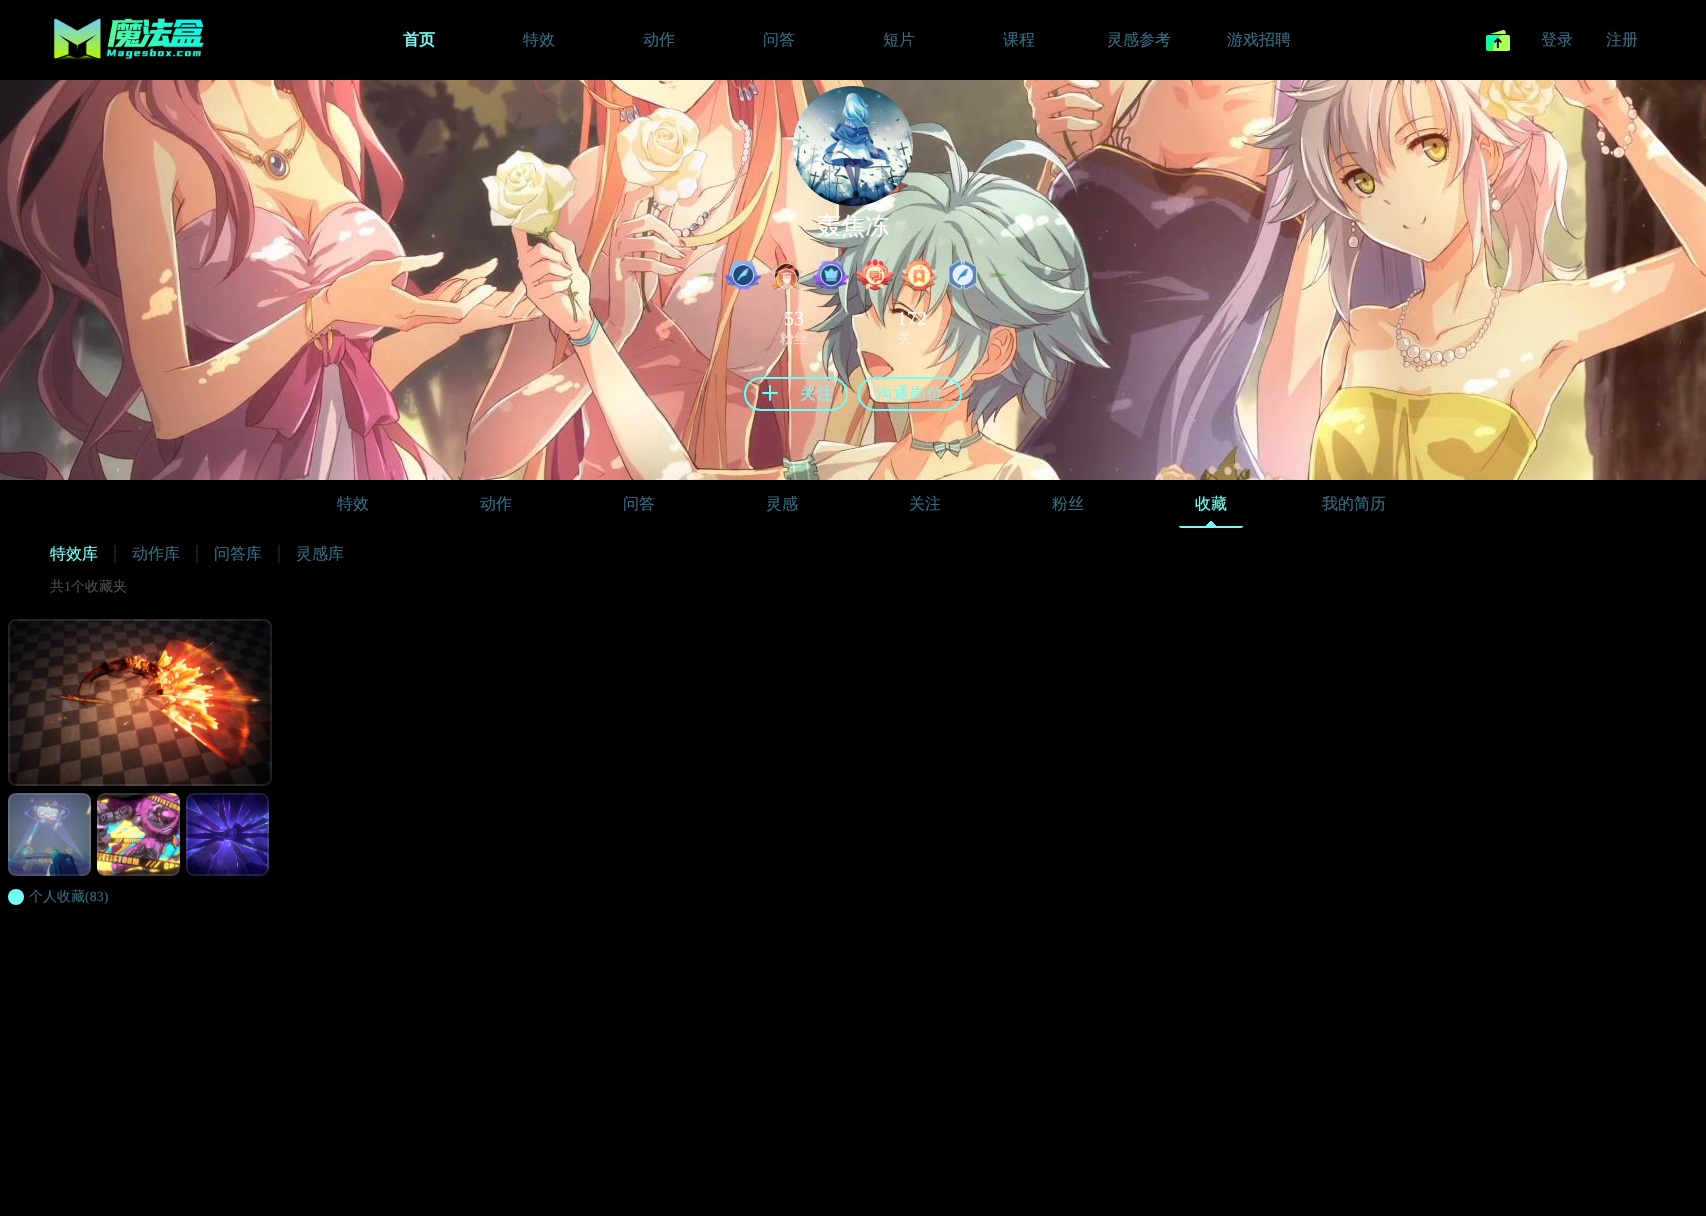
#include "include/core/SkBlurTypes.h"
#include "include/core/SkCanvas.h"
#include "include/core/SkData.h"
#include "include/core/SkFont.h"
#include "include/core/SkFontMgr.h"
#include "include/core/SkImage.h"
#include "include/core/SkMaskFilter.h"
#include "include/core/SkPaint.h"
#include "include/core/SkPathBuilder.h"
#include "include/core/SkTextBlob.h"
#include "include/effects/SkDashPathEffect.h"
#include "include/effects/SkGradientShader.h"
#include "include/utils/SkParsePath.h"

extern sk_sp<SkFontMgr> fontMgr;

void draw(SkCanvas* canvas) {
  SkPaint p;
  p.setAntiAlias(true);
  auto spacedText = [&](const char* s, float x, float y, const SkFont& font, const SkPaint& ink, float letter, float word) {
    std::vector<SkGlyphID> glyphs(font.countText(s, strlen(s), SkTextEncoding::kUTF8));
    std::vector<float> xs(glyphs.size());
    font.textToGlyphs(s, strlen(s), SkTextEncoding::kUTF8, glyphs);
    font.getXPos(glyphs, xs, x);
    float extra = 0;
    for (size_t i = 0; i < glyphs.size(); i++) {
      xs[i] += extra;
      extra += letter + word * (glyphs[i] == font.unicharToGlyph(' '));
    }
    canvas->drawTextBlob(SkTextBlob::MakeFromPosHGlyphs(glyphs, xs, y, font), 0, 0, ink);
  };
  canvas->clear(SK_ColorBLACK);
  canvas->drawImageRect(SkImages::DeferredFromEncodedData(SkData::MakeFromFileName("images/1.png")), SkRect::MakeLTRB(54, 18, 204, 60), SkSamplingOptions());
  canvas->drawImageRect(SkImages::DeferredFromEncodedData(SkData::MakeFromFileName("images/2.png")), SkRect::MakeLTRB(1486, 30, 1510, 51), SkSamplingOptions());
  canvas->drawImageRect(SkImages::DeferredFromEncodedData(SkData::MakeFromFileName("images/3.png")), SkRect::MakeLTRB(0, 80, 1706, 480), SkSamplingOptions());
  canvas->drawImageRect(SkImages::DeferredFromEncodedData(SkData::MakeFromFileName("images/4.png")), SkRect::MakeLTRB(793, 86, 913, 206), SkSamplingOptions());
  canvas->drawImageRect(SkImages::DeferredFromEncodedData(SkData::MakeFromFileName("images/5.png")), SkRect::MakeLTRB(698, 272, 718, 278), SkSamplingOptions());
  canvas->drawImageRect(SkImages::DeferredFromEncodedData(SkData::MakeFromFileName("images/6.png")), SkRect::MakeLTRB(724, 260, 762, 290), SkSamplingOptions());
  canvas->drawImageRect(SkImages::DeferredFromEncodedData(SkData::MakeFromFileName("images/7.png")), SkRect::MakeLTRB(770, 260, 803, 291), SkSamplingOptions());
  canvas->drawImageRect(SkImages::DeferredFromEncodedData(SkData::MakeFromFileName("images/8.png")), SkRect::MakeLTRB(812, 260, 850, 290), SkSamplingOptions());
  canvas->drawImageRect(SkImages::DeferredFromEncodedData(SkData::MakeFromFileName("images/9.png")), SkRect::MakeLTRB(856, 259, 894, 291), SkSamplingOptions());
  canvas->drawImageRect(SkImages::DeferredFromEncodedData(SkData::MakeFromFileName("images/10.png")), SkRect::MakeLTRB(900, 259, 938, 291), SkSamplingOptions());
  canvas->drawImageRect(SkImages::DeferredFromEncodedData(SkData::MakeFromFileName("images/11.png")), SkRect::MakeLTRB(948, 260, 978, 290), SkSamplingOptions());
  canvas->drawImageRect(SkImages::DeferredFromEncodedData(SkData::MakeFromFileName("images/12.png")), SkRect::MakeLTRB(988, 272, 1008, 278), SkSamplingOptions());
  canvas->drawImageRect(SkImages::DeferredFromEncodedData(SkData::MakeFromFileName("images/13.png")), SkRect::MakeLTRB(851, 324, 853, 341), SkSamplingOptions());
  p.setStyle(SkPaint::kStroke_Style);
  p.setStrokeWidth(2);
  p.setColor(SkColorSetRGB(112, 255, 247));
  canvas->drawRoundRect(SkRect::MakeLTRB(745, 378, 847, 410), 16, 16, p);
  canvas->drawImageRect(SkImages::DeferredFromEncodedData(SkData::MakeFromFileName("images/14.png")), SkRect::MakeLTRB(762, 385, 778, 401), SkSamplingOptions());
  canvas->drawRoundRect(SkRect::MakeLTRB(859, 378, 961, 410), 16, 16, p);
  canvas->drawImageRect(SkImages::DeferredFromEncodedData(SkData::MakeFromFileName("images/15.png")), SkRect::MakeLTRB(1179, 521, 1243, 528), SkSamplingOptions());
  p.setStyle(SkPaint::kFill_Style);
  p.setColor(SkColorSetRGB(26, 26, 26));
  canvas->drawRect(SkRect::MakeLTRB(114, 545, 116, 563), p);
  canvas->drawRect(SkRect::MakeLTRB(196, 545, 198, 563), p);
  canvas->drawRect(SkRect::MakeLTRB(278, 545, 280, 563), p);
  canvas->drawImageRect(SkImages::DeferredFromEncodedData(SkData::MakeFromFileName("images/16.png")), SkRect::MakeLTRB(8, 619, 272, 786), SkSamplingOptions());
  p.setStyle(SkPaint::kStroke_Style);
  p.setColor(SkColorSetARGB(26, 255, 255, 255));
  canvas->drawRoundRect(SkRect::MakeLTRB(9, 620, 271, 785), 7, 7, p);
  canvas->drawImageRect(SkImages::DeferredFromEncodedData(SkData::MakeFromFileName("images/17.png")), SkRect::MakeLTRB(8, 793, 91, 876), SkSamplingOptions());
  canvas->drawRoundRect(SkRect::MakeLTRB(9, 794, 90, 875), 7, 7, p);
  canvas->drawImageRect(SkImages::DeferredFromEncodedData(SkData::MakeFromFileName("images/18.png")), SkRect::MakeLTRB(97, 793, 180, 876), SkSamplingOptions());
  canvas->drawRoundRect(SkRect::MakeLTRB(98, 794, 179, 875), 7, 7, p);
  canvas->drawImageRect(SkImages::DeferredFromEncodedData(SkData::MakeFromFileName("images/19.png")), SkRect::MakeLTRB(186, 793, 269, 876), SkSamplingOptions());
  canvas->drawRoundRect(SkRect::MakeLTRB(187, 794, 268, 875), 7, 7, p);
  p.setStyle(SkPaint::kFill_Style);
  p.setColor(SkColorSetRGB(112, 255, 247));
  canvas->drawCircle(16, 897, 8, p);
  SkFont font1(fontMgr->matchFamilyStyle("WenQuanYi Zen Hei", SkFontStyle::Bold()), 16);
  font1.setSubpixel(true);
  canvas->drawString("首页", 403, 45, font1, p);
  SkFont font2(fontMgr->matchFamilyStyle("WenQuanYi Zen Hei", SkFontStyle(500, SkFontStyle::kNormal_Width, SkFontStyle::kUpright_Slant)), 16);
  font2.setSubpixel(true);
  p.setColor(SkColorSetRGB(52, 109, 134));
  canvas->drawString("特效", 523, 45, font2, p);
  canvas->drawString("动作", 643, 45, font2, p);
  canvas->drawString("问答", 763, 45, font2, p);
  canvas->drawString("短片", 883, 45, font2, p);
  canvas->drawString("课程", 1003, 45, font2, p);
  canvas->drawString("灵感参考", 1107, 45, font2, p);
  canvas->drawString("游戏招聘", 1227, 45, font2, p);
  canvas->drawString("登录", 1541, 45, font2, p);
  canvas->drawString("注册", 1606, 45, font2, p);
  SkFont font3(fontMgr->matchFamilyStyle("WenQuanYi Zen Hei", SkFontStyle(500, SkFontStyle::kNormal_Width, SkFontStyle::kUpright_Slant)), 24);
  font3.setSubpixel(true);
  p.setColor(SK_ColorWHITE);
  canvas->drawString("轰焦冻", 817, 234, font3, p);
  SkFont font4(fontMgr->matchFamilyStyle("Liberation Serif", SkFontStyle::Normal()), 20);
  font4.setSubpixel(true);
  canvas->drawString("53", 784, 325, font4, p);
  SkFont font5(fontMgr->matchFamilyStyle("WenQuanYi Zen Hei", SkFontStyle(500, SkFontStyle::kNormal_Width, SkFontStyle::kUpright_Slant)), 14);
  font5.setSubpixel(true);
  p.setColor(SkColorSetRGB(246, 225, 216));
  canvas->drawString("粉丝", 780, 343, font5, p);
  p.setColor(SK_ColorWHITE);
  canvas->drawString("172", 897, 325, font4, p);
  p.setColor(SkColorSetRGB(253, 243, 227));
  canvas->drawString("关", 898, 343, font5, p);
  p.setColor(SkColorSetRGB(112, 255, 247));
  spacedText("关注", 800, 399, font2, p, 1, 0);
  spacedText("沟通岗位", 876, 399, font2, p, 1, 0);
  p.setColor(SkColorSetRGB(52, 109, 134));
  canvas->drawString("特效", 337, 509, font2, p);
  canvas->drawString("动作", 480, 509, font2, p);
  canvas->drawString("问答", 623, 509, font2, p);
  canvas->drawString("灵感", 766, 509, font2, p);
  canvas->drawString("关注", 909, 509, font2, p);
  canvas->drawString("粉丝", 1052, 509, font2, p);
  p.setColor(SkColorSetRGB(112, 255, 247));
  canvas->drawString("收藏", 1195, 509, font2, p);
  p.setColor(SkColorSetRGB(52, 109, 134));
  canvas->drawString("我的简历", 1322, 509, font2, p);
  p.setColor(SkColorSetRGB(112, 255, 247));
  canvas->drawString("特效库", 50, 559, font2, p);
  p.setColor(SkColorSetRGB(52, 109, 134));
  canvas->drawString("动作库", 132, 559, font2, p);
  canvas->drawString("问答库", 214, 559, font2, p);
  canvas->drawString("灵感库", 296, 559, font2, p);
  p.setColor(SkColorSetRGB(77, 77, 77));
  canvas->drawString("共", 50, 591, font5, p);
  SkFont font6(fontMgr->matchFamilyStyle("Liberation Serif", SkFontStyle::Normal()), 14);
  font6.setSubpixel(true);
  canvas->drawString("1", 64, 591, font6, p);
  canvas->drawString("个收藏夹", 71, 591, font5, p);
  p.setColor(SkColorSetRGB(52, 109, 134));
  canvas->drawString("个人收藏", 29, 901, font5, p);
  canvas->drawString("(83)", 85, 901, font6, p);
}
